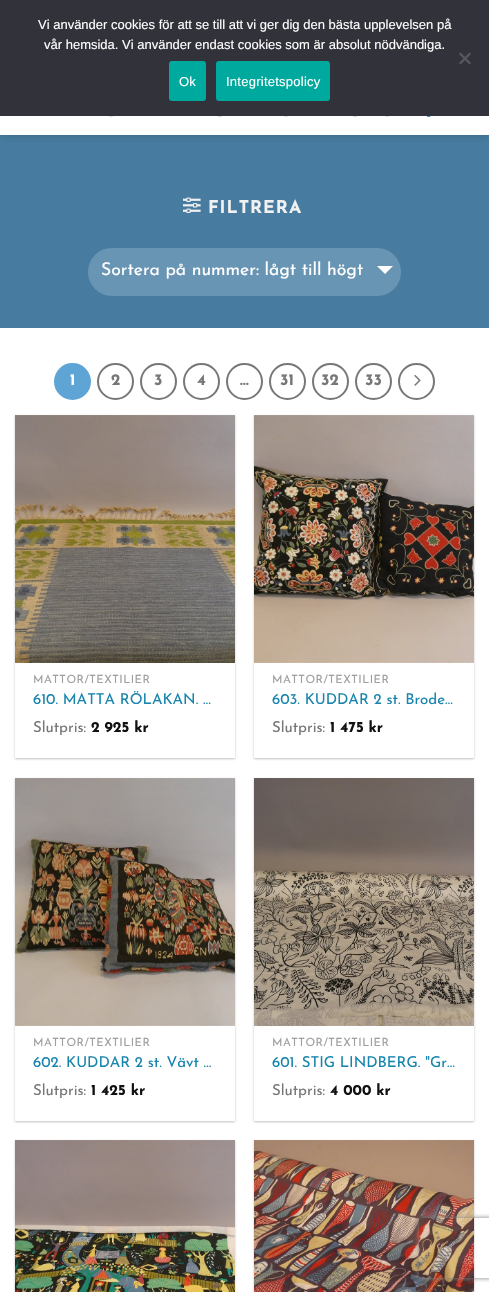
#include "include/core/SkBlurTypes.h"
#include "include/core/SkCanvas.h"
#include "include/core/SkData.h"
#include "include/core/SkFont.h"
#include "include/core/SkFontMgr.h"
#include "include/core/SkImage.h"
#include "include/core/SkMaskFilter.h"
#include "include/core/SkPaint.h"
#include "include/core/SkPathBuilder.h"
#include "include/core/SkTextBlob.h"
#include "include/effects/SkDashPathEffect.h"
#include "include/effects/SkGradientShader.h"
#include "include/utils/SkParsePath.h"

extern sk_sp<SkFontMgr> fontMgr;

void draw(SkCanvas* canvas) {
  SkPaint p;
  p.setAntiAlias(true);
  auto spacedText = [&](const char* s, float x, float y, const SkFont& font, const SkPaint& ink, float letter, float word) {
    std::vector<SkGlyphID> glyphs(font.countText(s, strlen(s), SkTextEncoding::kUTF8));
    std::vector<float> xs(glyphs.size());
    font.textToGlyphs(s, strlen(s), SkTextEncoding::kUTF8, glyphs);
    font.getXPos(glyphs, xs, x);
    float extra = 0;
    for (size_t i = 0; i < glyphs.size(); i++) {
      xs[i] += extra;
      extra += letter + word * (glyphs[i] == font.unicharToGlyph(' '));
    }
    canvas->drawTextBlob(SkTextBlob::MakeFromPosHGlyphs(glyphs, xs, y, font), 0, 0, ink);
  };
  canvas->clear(SK_ColorWHITE);
  p.setColor(SkColorSetRGB(71, 124, 160));
  canvas->drawRect(SkRect::MakeLTRB(0, 135, 489, 328), p);
  canvas->save();
  canvas->clipRect(SkRect::MakeLTRB(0, 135, 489, 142));
  p.setColor(SkColorSetARGB(38, 0, 0, 0));
  p.setMaskFilter(SkMaskFilter::MakeBlur(kNormal_SkBlurStyle, 5));
  canvas->drawRect(SkRect::MakeLTRB(1, 1, 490, 136), p);
  p.setMaskFilter(nullptr);
  canvas->restore();
  p.setColor(SkColorSetRGB(50, 50, 58));
  canvas->drawRect(SkRect::MakeLTRB(0, 0, 489, 116), p);
  p.setColor(SkColorSetRGB(89, 89, 93));
  canvas->drawPath(SkPathBuilder().moveTo(469.5f, 52.5f).lineTo(471, 54).lineTo(460.5f, 64.5f).lineTo(459, 63).close().detach(), p);
  canvas->drawPath(SkPathBuilder().moveTo(459, 54).lineTo(460.5f, 52.5f).lineTo(471, 63).lineTo(469.5f, 64.5f).close().detach(), p);
  p.setColor(SkColorSetRGB(0, 169, 157));
  canvas->drawRoundRect(SkRect::MakeLTRB(169, 61, 206, 101), 3, 3, p);
  canvas->drawRoundRect(SkRect::MakeLTRB(216, 61, 330, 101), 3, 3, p);
  canvas->drawImageRect(SkImages::DeferredFromEncodedData(SkData::MakeFromFileName("images/1.png")), SkRect::MakeLTRB(108, 116, 431, 117), SkSamplingOptions());
  canvas->drawImageRect(SkImages::DeferredFromEncodedData(SkData::MakeFromFileName("images/2.png")), SkRect::MakeLTRB(183, 197, 201, 213), SkSamplingOptions());
  p.setColor(SkColorSetRGB(105, 149, 180));
  canvas->drawRoundRect(SkRect::MakeLTRB(88, 248, 401, 296), 24, 24, p);
  p.setColor(SK_ColorWHITE);
  canvas->drawPath(SkPathBuilder().moveTo(377, 266).lineTo(393, 266).lineTo(385, 274).close().detach(), p);
  p.setColor(SkColorSetRGB(94, 165, 213));
  canvas->drawCircle(72.5f, 381.5f, 17.5f, p);
  p.setStyle(SkPaint::kStroke_Style);
  p.setStrokeWidth(2);
  canvas->drawCircle(72.5f, 381.5f, 17.5f, p);
  p.setColor(SkColorSetRGB(119, 119, 119));
  canvas->drawCircle(115.5f, 381.5f, 17.5f, p);
  canvas->drawCircle(158.5f, 381.5f, 17.5f, p);
  canvas->drawCircle(201.5f, 381.5f, 17.5f, p);
  canvas->drawCircle(244.5f, 381.5f, 17.5f, p);
  canvas->drawCircle(287.5f, 381.5f, 17.5f, p);
  canvas->drawCircle(330.5f, 381.5f, 17.5f, p);
  canvas->drawCircle(373.5f, 381.5f, 17.5f, p);
  canvas->drawCircle(416.5f, 381.5f, 17.5f, p);
  canvas->drawImageRect(SkImages::DeferredFromEncodedData(SkData::MakeFromFileName("images/3.png")), SkRect::MakeLTRB(414, 374, 421, 386), SkSamplingOptions());
  canvas->save();
  canvas->clipPath(SkPathBuilder(SkPathFillType::kEvenOdd).moveTo(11, 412).lineTo(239, 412).lineTo(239, 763).lineTo(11, 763).close().moveTo(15, 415).lineTo(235, 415).lineTo(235, 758).lineTo(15, 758).close().detach(), true);
  p.setStyle(SkPaint::kFill_Style);
  p.setColor(SkColorSetARGB(61, 0, 0, 0));
  p.setMaskFilter(SkMaskFilter::MakeBlur(kNormal_SkBlurStyle, 1));
  canvas->drawRect(SkRect::MakeLTRB(15, 416, 235, 759), p);
  p.setMaskFilter(nullptr);
  canvas->restore();
  canvas->drawImageRect(SkImages::DeferredFromEncodedData(SkData::MakeFromFileName("images/4.png")), SkRect::MakeLTRB(15, 415, 235, 663), SkSamplingOptions());
  canvas->save();
  canvas->clipPath(SkPathBuilder(SkPathFillType::kEvenOdd).moveTo(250, 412).lineTo(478, 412).lineTo(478, 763).lineTo(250, 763).close().moveTo(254, 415).lineTo(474, 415).lineTo(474, 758).lineTo(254, 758).close().detach(), true);
  p.setMaskFilter(SkMaskFilter::MakeBlur(kNormal_SkBlurStyle, 1));
  canvas->drawRect(SkRect::MakeLTRB(254, 416, 474, 759), p);
  p.setMaskFilter(nullptr);
  canvas->restore();
  canvas->drawImageRect(SkImages::DeferredFromEncodedData(SkData::MakeFromFileName("images/5.png")), SkRect::MakeLTRB(254, 415, 474, 663), SkSamplingOptions());
  canvas->save();
  canvas->clipPath(SkPathBuilder(SkPathFillType::kEvenOdd).moveTo(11, 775).lineTo(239, 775).lineTo(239, 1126).lineTo(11, 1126).close().moveTo(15, 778).lineTo(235, 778).lineTo(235, 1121).lineTo(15, 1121).close().detach(), true);
  p.setMaskFilter(SkMaskFilter::MakeBlur(kNormal_SkBlurStyle, 1));
  canvas->drawRect(SkRect::MakeLTRB(15, 779, 235, 1122), p);
  p.setMaskFilter(nullptr);
  canvas->restore();
  canvas->drawImageRect(SkImages::DeferredFromEncodedData(SkData::MakeFromFileName("images/6.png")), SkRect::MakeLTRB(15, 778, 235, 1026), SkSamplingOptions());
  canvas->save();
  canvas->clipPath(SkPathBuilder(SkPathFillType::kEvenOdd).moveTo(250, 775).lineTo(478, 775).lineTo(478, 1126).lineTo(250, 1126).close().moveTo(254, 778).lineTo(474, 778).lineTo(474, 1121).lineTo(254, 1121).close().detach(), true);
  p.setMaskFilter(SkMaskFilter::MakeBlur(kNormal_SkBlurStyle, 1));
  canvas->drawRect(SkRect::MakeLTRB(254, 779, 474, 1122), p);
  p.setMaskFilter(nullptr);
  canvas->restore();
  canvas->drawImageRect(SkImages::DeferredFromEncodedData(SkData::MakeFromFileName("images/7.png")), SkRect::MakeLTRB(254, 778, 474, 1026), SkSamplingOptions());
  p.setMaskFilter(SkMaskFilter::MakeBlur(kNormal_SkBlurStyle, 1));
  canvas->drawRect(SkRect::MakeLTRB(15, 1141, 235, 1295), p);
  p.setMaskFilter(nullptr);
  canvas->drawImageRect(SkImages::DeferredFromEncodedData(SkData::MakeFromFileName("images/8.png")), SkRect::MakeLTRB(15, 1140, 235, 1292), SkSamplingOptions());
  p.setMaskFilter(SkMaskFilter::MakeBlur(kNormal_SkBlurStyle, 1));
  canvas->drawRect(SkRect::MakeLTRB(254, 1141, 474, 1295), p);
  p.setMaskFilter(nullptr);
  canvas->drawImageRect(SkImages::DeferredFromEncodedData(SkData::MakeFromFileName("images/9.png")), SkRect::MakeLTRB(254, 1140, 474, 1292), SkSamplingOptions());
  canvas->save();
  canvas->clipPath(SkPathBuilder(SkPathFillType::kEvenOdd).moveTo(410, 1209).lineTo(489, 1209).lineTo(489, 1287).lineTo(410, 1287).close().moveTo(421, 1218).lineTo(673, 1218).cubicTo(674, 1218, 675, 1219, 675, 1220).lineTo(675, 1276).cubicTo(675, 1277, 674, 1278, 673, 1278).lineTo(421, 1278).cubicTo(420, 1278, 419, 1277, 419, 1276).lineTo(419, 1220).cubicTo(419, 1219, 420, 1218, 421, 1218).close().detach(), true);
  p.setColor(SkColorSetRGB(128, 128, 128));
  p.setMaskFilter(SkMaskFilter::MakeBlur(kNormal_SkBlurStyle, 2.5f));
  canvas->drawRoundRect(SkRect::MakeLTRB(419, 1218, 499, 1278), 2, 2, p);
  p.setMaskFilter(nullptr);
  canvas->restore();
  SkFont font1(fontMgr->matchFamilyStyle("Liberation Sans", SkFontStyle::Normal()), 13);
  font1.setSubpixel(true);
  p.setColor(SK_ColorWHITE);
  canvas->drawString("Vi använder cookies för att se till att vi ger dig den bästa upplevelsen på", 38, 29, font1, p);
  canvas->drawString("vår hemsida. Vi använder endast cookies som är absolut nödvändiga.", 44, 49, font1, p);
  spacedText("Ok", 179, 86, font1, p, 0.25f, 0);
  spacedText("Integritetspolicy", 226, 86, font1, p, 0.25f, 0);
  SkFont font2(fontMgr->matchFamilyStyle("Josefin Sans", SkFontStyle::Bold()), 17.6f);
  font2.setSubpixel(true);
  p.setColor(SkColorSetRGB(241, 241, 241));
  spacedText("FILTRERA", 208, 213, font2, p, 1, 0);
  SkFont font3(fontMgr->matchFamilyStyle("Josefin Sans", SkFontStyle::Normal()), 17.6f);
  font3.setSubpixel(true);
  p.setColor(SK_ColorWHITE);
  canvas->drawString("Sortera på nummer: lågt till högt", 101, 275, font3, p);
  SkFont font4(fontMgr->matchFamilyStyle("Josefin Sans", SkFontStyle::Bold()), 16);
  font4.setSubpixel(true);
  canvas->drawString("1", 70, 385, font4, p);
  p.setColor(SkColorSetRGB(119, 119, 119));
  canvas->drawString("2", 111, 385, font4, p);
  canvas->drawString("3", 154, 385, font4, p);
  canvas->drawString("4", 197, 385, font4, p);
  canvas->drawString("…", 240, 385, font4, p);
  canvas->drawString("31", 280, 385, font4, p);
  canvas->drawString("32", 321, 385, font4, p);
  canvas->drawString("33", 365, 385, font4, p);
  SkFont font5(fontMgr->matchFamilyStyle("Josefin Sans", SkFontStyle::Normal()), 11.25f);
  font5.setSubpixel(true);
  p.setColor(SkColorSetRGB(160, 160, 160));
  spacedText("MATTOR/TEXTILIER", 33, 683, font5, p, 0.5f, 0);
  SkFont font6(fontMgr->matchFamilyStyle("Josefin Sans", SkFontStyle::Normal()), 15);
  font6.setSubpixel(true);
  p.setColor(SkColorSetRGB(24, 133, 173));
  canvas->drawString("610. MATTA RÖLAKAN. …", 33, 704, font6, p);
  p.setColor(SkColorSetRGB(119, 119, 119));
  canvas->drawString("Slutpris:", 33, 732, font6, p);
  SkFont font7(fontMgr->matchFamilyStyle("Josefin Sans", SkFontStyle::Bold()), 15);
  font7.setSubpixel(true);
  p.setColor(SkColorSetRGB(17, 17, 17));
  canvas->drawString("2 925 kr", 91, 732, font7, p);
  p.setColor(SkColorSetRGB(160, 160, 160));
  spacedText("MATTOR/TEXTILIER", 272, 683, font5, p, 0.5f, 0);
  p.setColor(SkColorSetRGB(24, 133, 173));
  canvas->drawString("603. KUDDAR 2 st. Brode…", 272, 704, font6, p);
  p.setColor(SkColorSetRGB(119, 119, 119));
  canvas->drawString("Slutpris:", 272, 732, font6, p);
  p.setColor(SkColorSetRGB(17, 17, 17));
  canvas->drawString("1 475 kr", 330, 732, font7, p);
  p.setColor(SkColorSetRGB(160, 160, 160));
  spacedText("MATTOR/TEXTILIER", 33, 1046, font5, p, 0.5f, 0);
  p.setColor(SkColorSetRGB(24, 133, 173));
  canvas->drawString("602. KUDDAR 2 st. Vävt …", 33, 1067, font6, p);
  p.setColor(SkColorSetRGB(119, 119, 119));
  canvas->drawString("Slutpris:", 33, 1095, font6, p);
  p.setColor(SkColorSetRGB(17, 17, 17));
  canvas->drawString("1 425 kr", 91, 1095, font7, p);
  p.setColor(SkColorSetRGB(160, 160, 160));
  spacedText("MATTOR/TEXTILIER", 272, 1046, font5, p, 0.5f, 0);
  p.setColor(SkColorSetRGB(24, 133, 173));
  canvas->drawString("601. STIG LINDBERG. \"Gr…", 272, 1067, font6, p);
  p.setColor(SkColorSetRGB(119, 119, 119));
  canvas->drawString("Slutpris:", 272, 1095, font6, p);
  p.setColor(SkColorSetRGB(17, 17, 17));
  canvas->drawString("4 000 kr", 330, 1095, font7, p);
}
